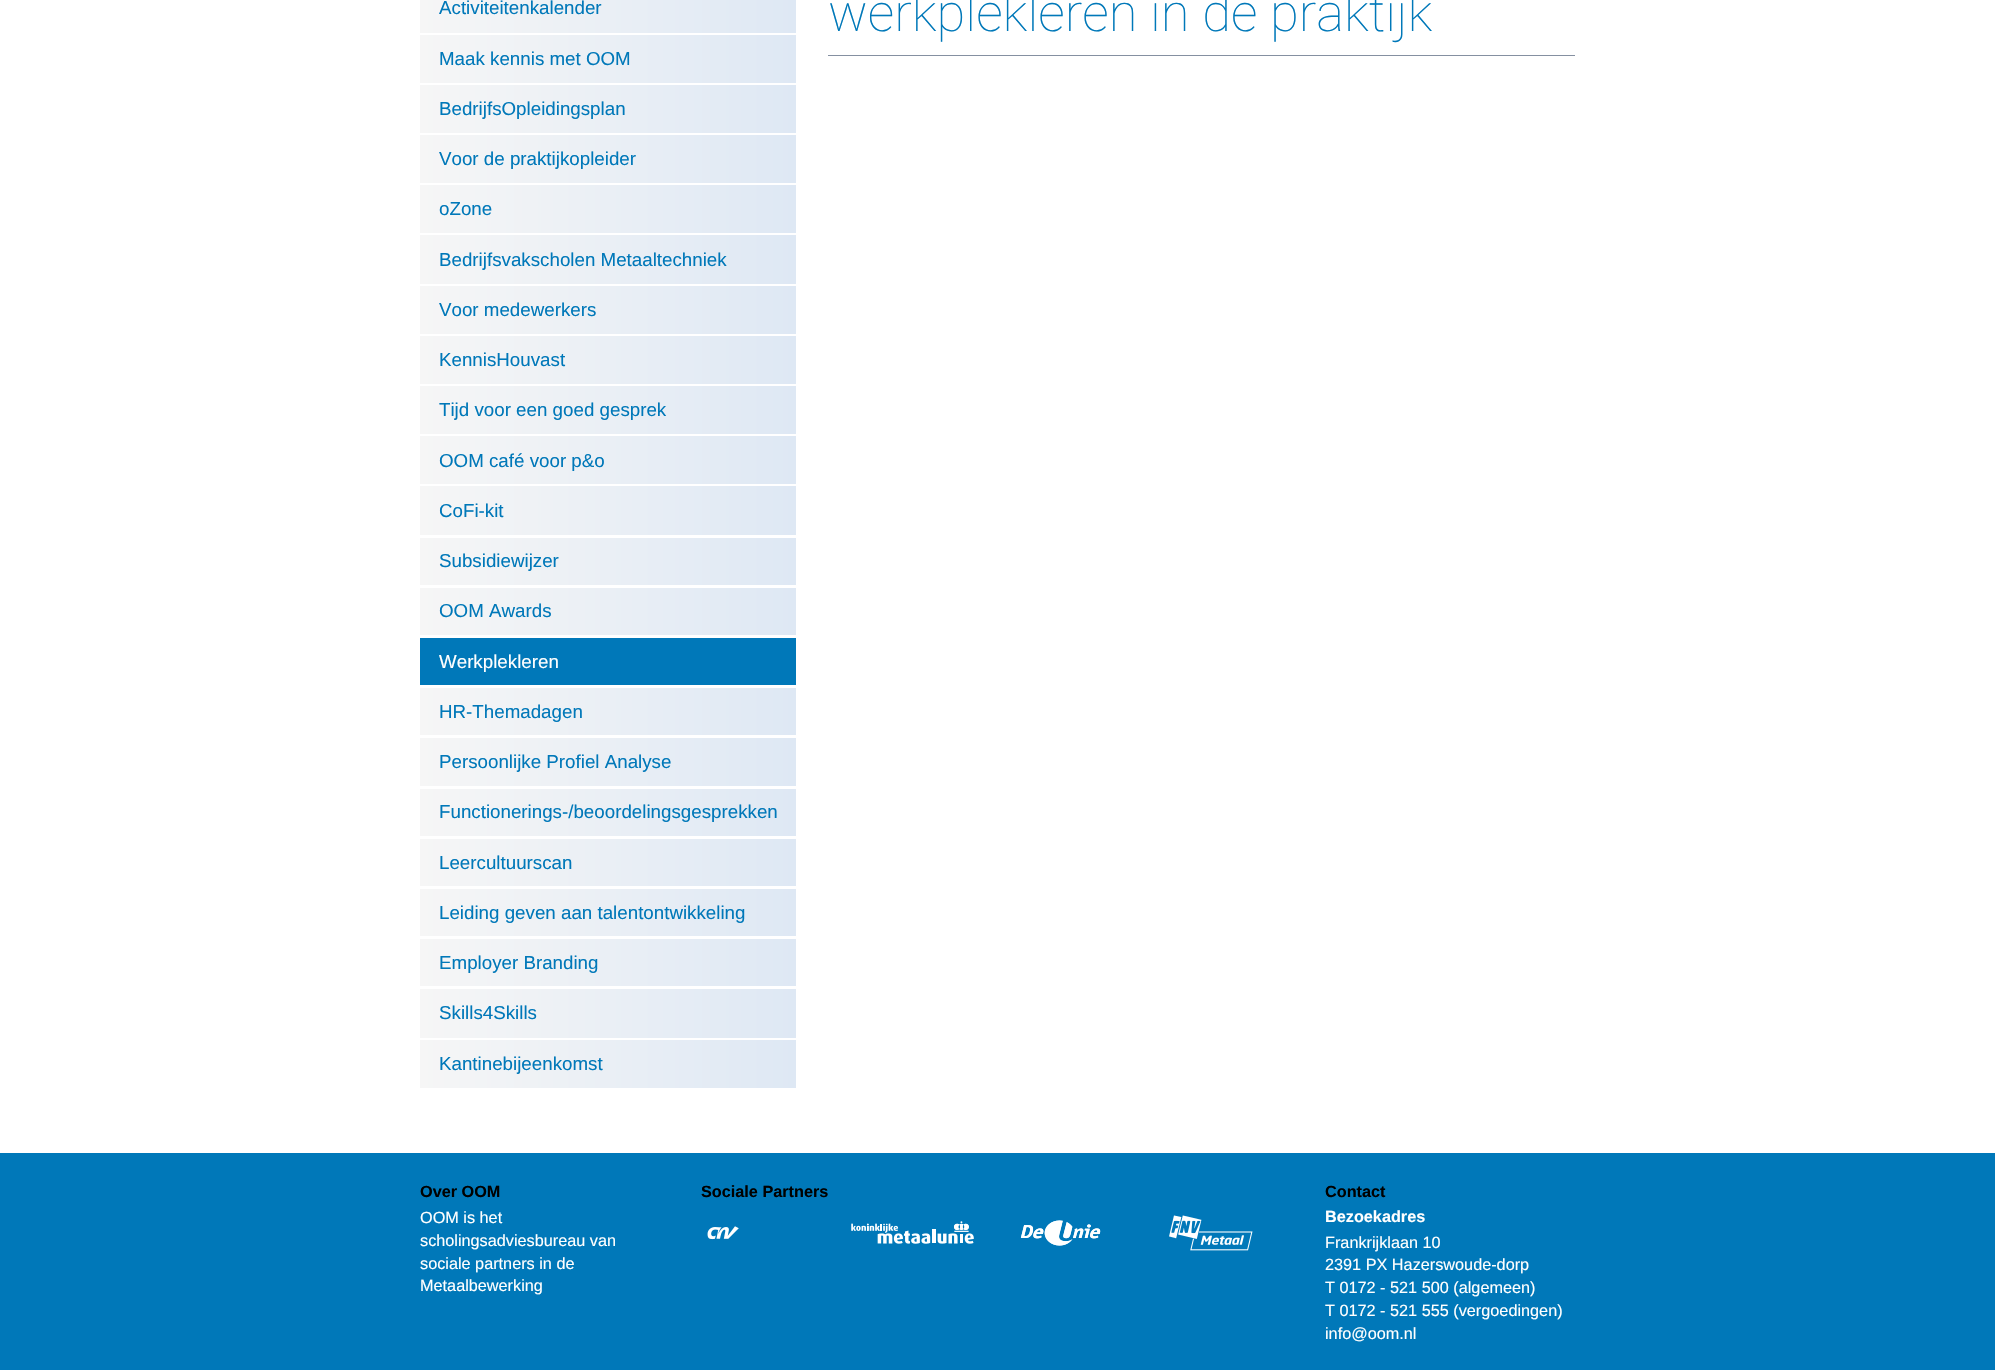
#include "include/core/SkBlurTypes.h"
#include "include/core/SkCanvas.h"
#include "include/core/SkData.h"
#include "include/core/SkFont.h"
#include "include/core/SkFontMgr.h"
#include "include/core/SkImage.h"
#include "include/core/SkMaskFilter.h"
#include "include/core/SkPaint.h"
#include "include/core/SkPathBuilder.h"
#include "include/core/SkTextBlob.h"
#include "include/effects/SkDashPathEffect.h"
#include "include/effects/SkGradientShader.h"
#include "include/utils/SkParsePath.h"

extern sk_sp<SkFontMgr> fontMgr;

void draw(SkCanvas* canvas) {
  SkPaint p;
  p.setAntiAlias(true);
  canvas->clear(SK_ColorWHITE);
  {
    const SkColor colors[] = {SkColorSetRGB(246, 246, 246), SkColorSetRGB(222, 232, 244)};
    const float stops[] = {0, 1};
    const SkPoint ends[] = {{420, 8}, {796, 8}};
    p.setShader(SkGradientShader::MakeLinear(ends, colors, stops, 2, SkTileMode::kClamp));
    p.setAlpha(255);
  }
  canvas->drawRect(SkRect::MakeLTRB(420, 0, 796, 33), p);
  {
    const SkColor colors[] = {SkColorSetRGB(246, 246, 246), SkColorSetRGB(222, 232, 244)};
    const float stops[] = {0, 1};
    const SkPoint ends[] = {{420, 59}, {796, 59}};
    p.setShader(SkGradientShader::MakeLinear(ends, colors, stops, 2, SkTileMode::kClamp));
    p.setAlpha(255);
  }
  canvas->drawRect(SkRect::MakeLTRB(420, 35, 796, 83), p);
  {
    const SkColor colors[] = {SkColorSetRGB(246, 246, 246), SkColorSetRGB(222, 232, 244)};
    const float stops[] = {0, 1};
    const SkPoint ends[] = {{420, 109}, {796, 109}};
    p.setShader(SkGradientShader::MakeLinear(ends, colors, stops, 2, SkTileMode::kClamp));
    p.setAlpha(255);
  }
  canvas->drawRect(SkRect::MakeLTRB(420, 85, 796, 133), p);
  {
    const SkColor colors[] = {SkColorSetRGB(246, 246, 246), SkColorSetRGB(222, 232, 244)};
    const float stops[] = {0, 1};
    const SkPoint ends[] = {{420, 159}, {796, 159}};
    p.setShader(SkGradientShader::MakeLinear(ends, colors, stops, 2, SkTileMode::kClamp));
    p.setAlpha(255);
  }
  canvas->drawRect(SkRect::MakeLTRB(420, 135, 796, 183), p);
  {
    const SkColor colors[] = {SkColorSetRGB(246, 246, 246), SkColorSetRGB(222, 232, 244)};
    const float stops[] = {0, 1};
    const SkPoint ends[] = {{420, 209}, {796, 209}};
    p.setShader(SkGradientShader::MakeLinear(ends, colors, stops, 2, SkTileMode::kClamp));
    p.setAlpha(255);
  }
  canvas->drawRect(SkRect::MakeLTRB(420, 185, 796, 233), p);
  {
    const SkColor colors[] = {SkColorSetRGB(246, 246, 246), SkColorSetRGB(222, 232, 244)};
    const float stops[] = {0, 1};
    const SkPoint ends[] = {{420, 259}, {796, 259}};
    p.setShader(SkGradientShader::MakeLinear(ends, colors, stops, 2, SkTileMode::kClamp));
    p.setAlpha(255);
  }
  canvas->drawRect(SkRect::MakeLTRB(420, 235, 796, 284), p);
  {
    const SkColor colors[] = {SkColorSetRGB(246, 246, 246), SkColorSetRGB(222, 232, 244)};
    const float stops[] = {0, 1};
    const SkPoint ends[] = {{420, 310}, {796, 310}};
    p.setShader(SkGradientShader::MakeLinear(ends, colors, stops, 2, SkTileMode::kClamp));
    p.setAlpha(255);
  }
  canvas->drawRect(SkRect::MakeLTRB(420, 286, 796, 334), p);
  {
    const SkColor colors[] = {SkColorSetRGB(246, 246, 246), SkColorSetRGB(222, 232, 244)};
    const float stops[] = {0, 1};
    const SkPoint ends[] = {{420, 360}, {796, 360}};
    p.setShader(SkGradientShader::MakeLinear(ends, colors, stops, 2, SkTileMode::kClamp));
    p.setAlpha(255);
  }
  canvas->drawRect(SkRect::MakeLTRB(420, 336, 796, 384), p);
  {
    const SkColor colors[] = {SkColorSetRGB(246, 246, 246), SkColorSetRGB(222, 232, 244)};
    const float stops[] = {0, 1};
    const SkPoint ends[] = {{420, 410}, {796, 410}};
    p.setShader(SkGradientShader::MakeLinear(ends, colors, stops, 2, SkTileMode::kClamp));
    p.setAlpha(255);
  }
  canvas->drawRect(SkRect::MakeLTRB(420, 386, 796, 434), p);
  {
    const SkColor colors[] = {SkColorSetRGB(246, 246, 246), SkColorSetRGB(222, 232, 244)};
    const float stops[] = {0, 1};
    const SkPoint ends[] = {{420, 460}, {796, 460}};
    p.setShader(SkGradientShader::MakeLinear(ends, colors, stops, 2, SkTileMode::kClamp));
    p.setAlpha(255);
  }
  canvas->drawRect(SkRect::MakeLTRB(420, 436, 796, 484), p);
  {
    const SkColor colors[] = {SkColorSetRGB(246, 246, 246), SkColorSetRGB(222, 232, 244)};
    const float stops[] = {0, 1};
    const SkPoint ends[] = {{420, 511}, {796, 511}};
    p.setShader(SkGradientShader::MakeLinear(ends, colors, stops, 2, SkTileMode::kClamp));
    p.setAlpha(255);
  }
  canvas->drawRect(SkRect::MakeLTRB(420, 486, 796, 535), p);
  {
    const SkColor colors[] = {SkColorSetRGB(246, 246, 246), SkColorSetRGB(222, 232, 244)};
    const float stops[] = {0, 1};
    const SkPoint ends[] = {{420, 561}, {796, 561}};
    p.setShader(SkGradientShader::MakeLinear(ends, colors, stops, 2, SkTileMode::kClamp));
    p.setAlpha(255);
  }
  canvas->drawRect(SkRect::MakeLTRB(420, 538, 796, 585), p);
  {
    const SkColor colors[] = {SkColorSetRGB(246, 246, 246), SkColorSetRGB(222, 232, 244)};
    const float stops[] = {0, 1};
    const SkPoint ends[] = {{420, 611}, {796, 611}};
    p.setShader(SkGradientShader::MakeLinear(ends, colors, stops, 2, SkTileMode::kClamp));
    p.setAlpha(255);
  }
  canvas->drawRect(SkRect::MakeLTRB(420, 588, 796, 635), p);
  p.setShader(nullptr);
  p.setColor(SkColorSetRGB(0, 120, 185));
  canvas->drawRect(SkRect::MakeLTRB(420, 638, 796, 685), p);
  {
    const SkColor colors[] = {SkColorSetRGB(246, 246, 246), SkColorSetRGB(222, 232, 244)};
    const float stops[] = {0, 1};
    const SkPoint ends[] = {{420, 711}, {796, 711}};
    p.setShader(SkGradientShader::MakeLinear(ends, colors, stops, 2, SkTileMode::kClamp));
    p.setAlpha(255);
  }
  canvas->drawRect(SkRect::MakeLTRB(420, 688, 796, 735), p);
  {
    const SkColor colors[] = {SkColorSetRGB(246, 246, 246), SkColorSetRGB(222, 232, 244)};
    const float stops[] = {0, 1};
    const SkPoint ends[] = {{420, 762}, {796, 762}};
    p.setShader(SkGradientShader::MakeLinear(ends, colors, stops, 2, SkTileMode::kClamp));
    p.setAlpha(255);
  }
  canvas->drawRect(SkRect::MakeLTRB(420, 738, 796, 786), p);
  {
    const SkColor colors[] = {SkColorSetRGB(246, 246, 246), SkColorSetRGB(222, 232, 244)};
    const float stops[] = {0, 1};
    const SkPoint ends[] = {{420, 813}, {796, 813}};
    p.setShader(SkGradientShader::MakeLinear(ends, colors, stops, 2, SkTileMode::kClamp));
    p.setAlpha(255);
  }
  canvas->drawRect(SkRect::MakeLTRB(420, 789, 796, 836), p);
  {
    const SkColor colors[] = {SkColorSetRGB(246, 246, 246), SkColorSetRGB(222, 232, 244)};
    const float stops[] = {0, 1};
    const SkPoint ends[] = {{420, 863}, {796, 863}};
    p.setShader(SkGradientShader::MakeLinear(ends, colors, stops, 2, SkTileMode::kClamp));
    p.setAlpha(255);
  }
  canvas->drawRect(SkRect::MakeLTRB(420, 839, 796, 886), p);
  {
    const SkColor colors[] = {SkColorSetRGB(246, 246, 246), SkColorSetRGB(222, 232, 244)};
    const float stops[] = {0, 1};
    const SkPoint ends[] = {{420, 913}, {796, 913}};
    p.setShader(SkGradientShader::MakeLinear(ends, colors, stops, 2, SkTileMode::kClamp));
    p.setAlpha(255);
  }
  canvas->drawRect(SkRect::MakeLTRB(420, 889, 796, 936), p);
  {
    const SkColor colors[] = {SkColorSetRGB(246, 246, 246), SkColorSetRGB(222, 232, 244)};
    const float stops[] = {0, 1};
    const SkPoint ends[] = {{420, 963}, {796, 963}};
    p.setShader(SkGradientShader::MakeLinear(ends, colors, stops, 2, SkTileMode::kClamp));
    p.setAlpha(255);
  }
  canvas->drawRect(SkRect::MakeLTRB(420, 939, 796, 986), p);
  {
    const SkColor colors[] = {SkColorSetRGB(246, 246, 246), SkColorSetRGB(222, 232, 244)};
    const float stops[] = {0, 1};
    const SkPoint ends[] = {{420, 1013}, {796, 1013}};
    p.setShader(SkGradientShader::MakeLinear(ends, colors, stops, 2, SkTileMode::kClamp));
    p.setAlpha(255);
  }
  canvas->drawRect(SkRect::MakeLTRB(420, 989, 796, 1038), p);
  {
    const SkColor colors[] = {SkColorSetRGB(246, 246, 246), SkColorSetRGB(222, 232, 244)};
    const float stops[] = {0, 1};
    const SkPoint ends[] = {{420, 1064}, {796, 1064}};
    p.setShader(SkGradientShader::MakeLinear(ends, colors, stops, 2, SkTileMode::kClamp));
    p.setAlpha(255);
  }
  canvas->drawRect(SkRect::MakeLTRB(420, 1040, 796, 1088), p);
  p.setShader(nullptr);
  p.setColor(SkColorSetRGB(133, 144, 161));
  canvas->drawRect(SkRect::MakeLTRB(828, 55, 1575, 56), p);
  p.setColor(SkColorSetRGB(0, 120, 185));
  canvas->drawRect(SkRect::MakeLTRB(0, 1153, 1995, 1370), p);
  canvas->drawImageRect(SkImages::DeferredFromEncodedData(SkData::MakeFromFileName("images/1.png")), SkRect::MakeLTRB(707, 1226, 739, 1240), SkSamplingOptions());
  canvas->drawImageRect(SkImages::DeferredFromEncodedData(SkData::MakeFromFileName("images/2.png")), SkRect::MakeLTRB(851, 1221, 974, 1244), SkSamplingOptions());
  canvas->drawImageRect(SkImages::DeferredFromEncodedData(SkData::MakeFromFileName("images/3.png")), SkRect::MakeLTRB(1020, 1220, 1101, 1246), SkSamplingOptions());
  canvas->drawImageRect(SkImages::DeferredFromEncodedData(SkData::MakeFromFileName("images/4.png")), SkRect::MakeLTRB(1169, 1215, 1253, 1251), SkSamplingOptions());
  SkFont font1(fontMgr->matchFamilyStyle("Liberation Sans", SkFontStyle::Normal()), 18.75f);
  font1.setSubpixel(true);
  canvas->drawString("Activiteitenkalender", 439, 14, font1, p);
  canvas->drawString("Maak kennis met OOM", 439, 65, font1, p);
  canvas->drawString("BedrijfsOpleidingsplan", 439, 115, font1, p);
  canvas->drawString("Voor de praktijkopleider", 439, 165, font1, p);
  canvas->drawString("oZone", 439, 215, font1, p);
  canvas->drawString("Bedrijfsvakscholen Metaaltechniek", 439, 266, font1, p);
  canvas->drawString("Voor medewerkers", 439, 316, font1, p);
  canvas->drawString("KennisHouvast", 439, 366, font1, p);
  canvas->drawString("Tijd voor een goed gesprek", 439, 416, font1, p);
  canvas->drawString("OOM café voor p&o", 439, 467, font1, p);
  canvas->drawString("CoFi-kit", 439, 517, font1, p);
  canvas->drawString("Subsidiewijzer", 439, 567, font1, p);
  canvas->drawString("OOM Awards", 439, 617, font1, p);
  p.setColor(SK_ColorWHITE);
  canvas->drawString("Werkplekleren", 439, 668, font1, p);
  p.setColor(SkColorSetRGB(0, 120, 185));
  canvas->drawString("HR-Themadagen", 439, 718, font1, p);
  canvas->drawString("Persoonlijke Profiel Analyse", 439, 768, font1, p);
  canvas->drawString("Functionerings-/beoordelingsgesprekken", 439, 818, font1, p);
  canvas->drawString("Leercultuurscan", 439, 869, font1, p);
  canvas->drawString("Leiding geven aan talentontwikkeling", 439, 919, font1, p);
  canvas->drawString("Employer Branding", 439, 969, font1, p);
  canvas->drawString("Skills4Skills", 439, 1019, font1, p);
  canvas->drawString("Kantinebijeenkomst", 439, 1070, font1, p);
  SkFont font2(fontMgr->matchFamilyStyle("Roboto", SkFontStyle(100, SkFontStyle::kNormal_Width, SkFontStyle::kUpright_Slant)), 52.5f);
  font2.setSubpixel(true);
  canvas->drawString("werkplekleren in de praktijk", 828, 31, font2, p);
  SkFont font3(fontMgr->matchFamilyStyle("Liberation Sans", SkFontStyle::Bold()), 16.25f);
  font3.setSubpixel(true);
  p.setColor(SK_ColorBLACK);
  canvas->drawString("Over OOM", 420, 1197, font3, p);
  SkFont font4(fontMgr->matchFamilyStyle("Liberation Sans", SkFontStyle::Normal()), 16.25f);
  font4.setSubpixel(true);
  p.setColor(SK_ColorWHITE);
  canvas->drawString("OOM is het", 420, 1223, font4, p);
  canvas->drawString("scholingsadviesbureau van", 420, 1246, font4, p);
  canvas->drawString("sociale partners in de", 420, 1269, font4, p);
  canvas->drawString("Metaalbewerking", 420, 1291, font4, p);
  p.setColor(SK_ColorBLACK);
  canvas->drawString("Sociale Partners", 701, 1197, font3, p);
  canvas->drawString("Contact", 1325, 1197, font3, p);
  p.setColor(SK_ColorWHITE);
  canvas->drawString("Bezoekadres", 1325, 1222, font3, p);
  canvas->drawString("Frankrijklaan 10", 1325, 1248, font4, p);
  canvas->drawString("2391 PX Hazerswoude-dorp", 1325, 1270, font4, p);
  canvas->drawString("T 0172 - 521 500 (algemeen)", 1325, 1293, font4, p);
  canvas->drawString("T 0172 - 521 555 (vergoedingen)", 1325, 1316, font4, p);
  canvas->drawString("info@oom.nl", 1325, 1339, font4, p);
}
